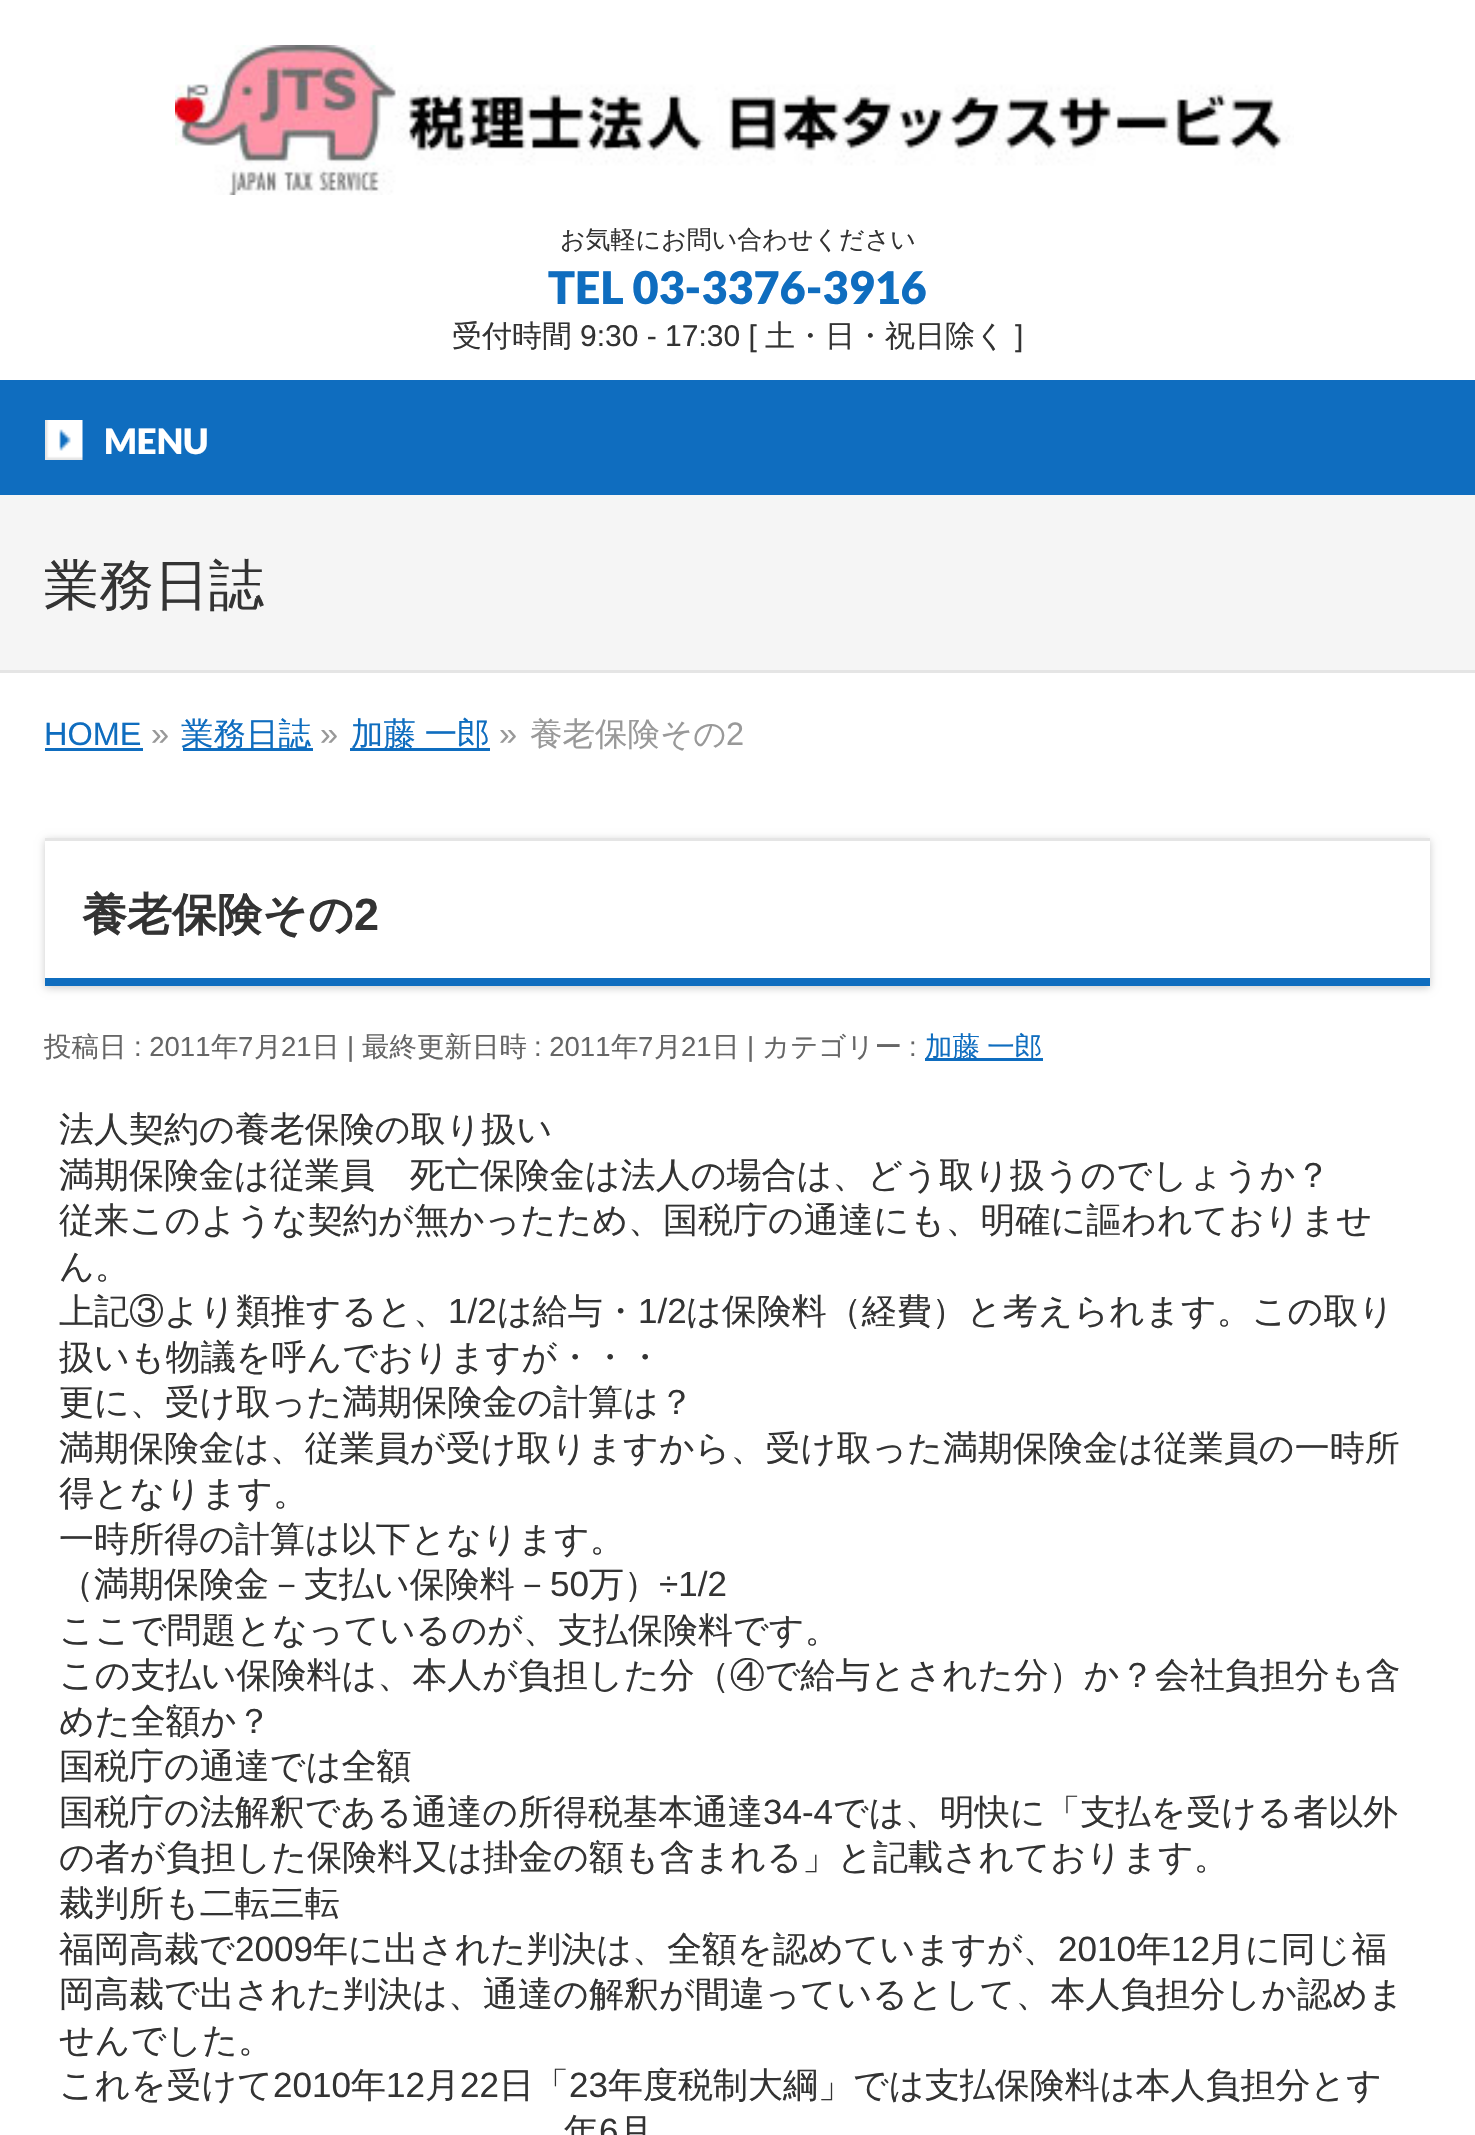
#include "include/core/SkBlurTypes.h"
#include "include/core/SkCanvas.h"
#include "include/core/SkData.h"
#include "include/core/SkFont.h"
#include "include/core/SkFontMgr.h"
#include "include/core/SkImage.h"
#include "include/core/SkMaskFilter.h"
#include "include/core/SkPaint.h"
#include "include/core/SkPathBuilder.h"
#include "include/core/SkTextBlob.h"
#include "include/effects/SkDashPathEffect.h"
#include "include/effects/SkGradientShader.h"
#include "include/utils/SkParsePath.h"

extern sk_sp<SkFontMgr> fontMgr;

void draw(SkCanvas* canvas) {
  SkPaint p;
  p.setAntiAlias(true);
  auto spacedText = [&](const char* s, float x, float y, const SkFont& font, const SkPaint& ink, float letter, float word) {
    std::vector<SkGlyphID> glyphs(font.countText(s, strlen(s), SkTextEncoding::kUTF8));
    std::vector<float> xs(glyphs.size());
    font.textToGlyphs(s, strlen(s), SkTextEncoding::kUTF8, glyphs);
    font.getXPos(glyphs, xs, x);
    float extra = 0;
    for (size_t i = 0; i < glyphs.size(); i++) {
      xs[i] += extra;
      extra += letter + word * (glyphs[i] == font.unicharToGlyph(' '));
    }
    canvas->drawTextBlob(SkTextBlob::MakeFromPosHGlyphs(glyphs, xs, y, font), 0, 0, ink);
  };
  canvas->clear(SK_ColorWHITE);
  canvas->drawImageRect(SkImages::DeferredFromEncodedData(SkData::MakeFromFileName("images/1.png")), SkRect::MakeLTRB(175, 45, 1294, 195), SkSamplingOptions());
  p.setColor(SkColorSetRGB(15, 109, 191));
  canvas->drawRect(SkRect::MakeLTRB(0, 380, 1475, 495), p);
  canvas->drawImageRect(SkImages::DeferredFromEncodedData(SkData::MakeFromFileName("images/2.png")), SkRect::MakeLTRB(45, 420, 83, 460), SkSamplingOptions());
  p.setColor(SkColorSetRGB(245, 245, 245));
  canvas->drawRect(SkRect::MakeLTRB(0, 495, 1475, 670), p);
  p.setColor(SkColorSetRGB(229, 229, 229));
  canvas->drawRect(SkRect::MakeLTRB(0, 670, 1475, 673), p);
  p.setColor(SkColorSetRGB(15, 109, 191));
  canvas->drawRect(SkRect::MakeLTRB(45, 748, 143, 751), p);
  canvas->drawRect(SkRect::MakeLTRB(183, 748, 313, 751), p);
  canvas->drawRect(SkRect::MakeLTRB(350, 748, 490, 751), p);
  canvas->save();
  canvas->clipPath(SkPathBuilder(SkPathFillType::kEvenOdd).moveTo(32, 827).lineTo(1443, 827).lineTo(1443, 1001).lineTo(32, 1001).close().moveTo(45, 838).lineTo(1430, 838).lineTo(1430, 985).lineTo(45, 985).close().detach(), true);
  p.setColor(SkColorSetARGB(51, 0, 0, 0));
  p.setMaskFilter(SkMaskFilter::MakeBlur(kNormal_SkBlurStyle, 4));
  canvas->drawRect(SkRect::MakeLTRB(45, 840, 1430, 988), p);
  p.setMaskFilter(nullptr);
  canvas->restore();
  p.setColor(SkColorSetRGB(229, 229, 229));
  canvas->drawRect(SkRect::MakeLTRB(45, 838, 1430, 841), p);
  p.setColor(SkColorSetRGB(15, 109, 191));
  canvas->drawRect(SkRect::MakeLTRB(45, 978, 1430, 986), p);
  canvas->drawRect(SkRect::MakeLTRB(925, 1058, 1043, 1061), p);
  SkFont font1(fontMgr->matchFamilyStyle("WenQuanYi Zen Hei", SkFontStyle(500, SkFontStyle::kNormal_Width, SkFontStyle::kUpright_Slant)), 25);
  font1.setSubpixel(true);
  p.setColor(SkColorSetRGB(51, 51, 51));
  canvas->drawString("お気軽にお問い合わせください", 560, 248, font1, p);
  SkFont font2(fontMgr->matchFamilyStyle("Lato", SkFontStyle(900, SkFontStyle::kNormal_Width, SkFontStyle::kUpright_Slant)), 45);
  font2.setSubpixel(true);
  p.setColor(SkColorSetRGB(15, 109, 191));
  canvas->drawString("TEL 03-3376-3916", 548, 304, font2, p);
  SkFont font3(fontMgr->matchFamilyStyle("WenQuanYi Zen Hei", SkFontStyle(500, SkFontStyle::kNormal_Width, SkFontStyle::kUpright_Slant)), 30);
  font3.setSubpixel(true);
  p.setColor(SkColorSetRGB(51, 51, 51));
  canvas->drawString("受付時間", 452, 346, font3, p);
  SkFont font4(fontMgr->matchFamilyStyle("Liberation Sans", SkFontStyle::Normal()), 30);
  font4.setSubpixel(true);
  canvas->drawString("9:30 - 17:30 [", 580, 346, font4, p);
  canvas->drawString("土・日・祝日除く", 765, 346, font3, p);
  canvas->drawString("]", 1015, 346, font4, p);
  SkFont font5(fontMgr->matchFamilyStyle("Lato", SkFontStyle(900, SkFontStyle::kNormal_Width, SkFontStyle::kUpright_Slant)), 35);
  font5.setSubpixel(true);
  p.setColor(SK_ColorWHITE);
  canvas->drawString("MENU", 104, 454, font5, p);
  SkFont font6(fontMgr->matchFamilyStyle("WenQuanYi Zen Hei", SkFontStyle(500, SkFontStyle::kNormal_Width, SkFontStyle::kUpright_Slant)), 55);
  font6.setSubpixel(true);
  p.setColor(SkColorSetRGB(51, 51, 51));
  canvas->drawString("業務日誌", 44, 604, font6, p);
  SkFont font7(fontMgr->matchFamilyStyle("Liberation Sans", SkFontStyle::Normal()), 32.5f);
  font7.setSubpixel(true);
  p.setColor(SkColorSetRGB(15, 109, 191));
  canvas->drawString("HOME", 44, 745, font7, p);
  p.setColor(SkColorSetRGB(153, 153, 153));
  canvas->drawString("»", 151, 745, font7, p);
  SkFont font8(fontMgr->matchFamilyStyle("WenQuanYi Zen Hei", SkFontStyle(500, SkFontStyle::kNormal_Width, SkFontStyle::kUpright_Slant)), 32.5f);
  font8.setSubpixel(true);
  p.setColor(SkColorSetRGB(15, 109, 191));
  canvas->drawString("業務日誌", 181, 745, font8, p);
  p.setColor(SkColorSetRGB(153, 153, 153));
  canvas->drawString("»", 320, 745, font7, p);
  p.setColor(SkColorSetRGB(15, 109, 191));
  spacedText("加藤 一郎", 351, 745, font8, p, 0, -1);
  p.setColor(SkColorSetRGB(153, 153, 153));
  canvas->drawString("»", 499, 745, font7, p);
  canvas->drawString("養老保険その", 530, 745, font8, p);
  canvas->drawString("2", 726, 745, font7, p);
  SkFont font9(fontMgr->matchFamilyStyle("WenQuanYi Zen Hei", SkFontStyle::Bold()), 45);
  font9.setSubpixel(true);
  p.setColor(SkColorSetRGB(51, 51, 51));
  canvas->drawString("養老保険その", 82, 930, font9, p);
  SkFont font10(fontMgr->matchFamilyStyle("Liberation Sans", SkFontStyle::Bold()), 45);
  font10.setSubpixel(true);
  canvas->drawString("2", 354, 930, font10, p);
  SkFont font11(fontMgr->matchFamilyStyle("WenQuanYi Zen Hei", SkFontStyle(500, SkFontStyle::kNormal_Width, SkFontStyle::kUpright_Slant)), 27.5f);
  font11.setSubpixel(true);
  p.setColor(SkColorSetRGB(102, 102, 102));
  canvas->drawString("投稿日", 44, 1056, font11, p);
  SkFont font12(fontMgr->matchFamilyStyle("Liberation Sans", SkFontStyle::Normal()), 27.5f);
  font12.setSubpixel(true);
  canvas->drawString(": 2011", 134, 1056, font12, p);
  canvas->drawString("年", 211, 1056, font11, p);
  canvas->drawString("7", 238, 1056, font12, p);
  canvas->drawString("月", 254, 1056, font11, p);
  canvas->drawString("21", 281, 1056, font12, p);
  canvas->drawString("日", 312, 1056, font11, p);
  canvas->drawString("|", 347, 1056, font12, p);
  canvas->drawString("最終更新日時", 362, 1056, font11, p);
  canvas->drawString(": 2011", 534, 1056, font12, p);
  canvas->drawString("年", 611, 1056, font11, p);
  canvas->drawString("7", 638, 1056, font12, p);
  canvas->drawString("月", 654, 1056, font11, p);
  canvas->drawString("21", 681, 1056, font12, p);
  canvas->drawString("日", 712, 1056, font11, p);
  canvas->drawString("|", 747, 1056, font12, p);
  canvas->drawString("カテゴリー", 762, 1056, font11, p);
  canvas->drawString(":", 909, 1056, font12, p);
  p.setColor(SkColorSetRGB(15, 109, 191));
  spacedText("加藤 一郎", 925, 1056, font11, p, 0, -1);
  SkFont font13(fontMgr->matchFamilyStyle("WenQuanYi Zen Hei", SkFontStyle(500, SkFontStyle::kNormal_Width, SkFontStyle::kUpright_Slant)), 35);
  font13.setSubpixel(true);
  p.setColor(SkColorSetRGB(51, 51, 51));
  canvas->drawString("法人契約の養老保険の取り扱い", 59, 1141, font13, p);
  canvas->drawString("満期保険金は従業員　死亡保険金は法人の場合は、どう取り扱うのでしょうか？", 59, 1187, font13, p);
  canvas->drawString("従来このような契約が無かったため、国税庁の通達にも、明確に謳われておりませ", 59, 1232, font13, p);
  canvas->drawString("ん。", 59, 1278, font13, p);
  canvas->drawString("上記③より類推すると、", 59, 1323, font13, p);
  SkFont font14(fontMgr->matchFamilyStyle("Liberation Sans", SkFontStyle::Normal()), 35);
  font14.setSubpixel(true);
  canvas->drawString("1/2", 448, 1323, font14, p);
  canvas->drawString("は給与・", 497, 1323, font13, p);
  canvas->drawString("1/2", 638, 1323, font14, p);
  canvas->drawString("は保険料（経費）と考えられます。この取り", 686, 1323, font13, p);
  canvas->drawString("扱いも物議を呼んでおりますが・・・", 59, 1369, font13, p);
  canvas->drawString("更に、受け取った満期保険金の計算は？", 59, 1414, font13, p);
  canvas->drawString("満期保険金は、従業員が受け取りますから、受け取った満期保険金は従業員の一時所", 59, 1460, font13, p);
  canvas->drawString("得となります。", 59, 1505, font13, p);
  canvas->drawString("一時所得の計算は以下となります。", 59, 1551, font13, p);
  canvas->drawString("（満期保険金－支払い保険料－", 59, 1596, font13, p);
  canvas->drawString("50", 550, 1596, font14, p);
  canvas->drawString("万）", 589, 1596, font13, p);
  canvas->drawString("÷1/2", 659, 1596, font14, p);
  canvas->drawString("ここで問題となっているのが、支払保険料です。", 59, 1642, font13, p);
  canvas->drawString("この支払い保険料は、本人が負担した分（④で給与とされた分）か？会社負担分も含", 59, 1687, font13, p);
  canvas->drawString("めた全額か？", 59, 1733, font13, p);
  canvas->drawString("国税庁の通達では全額", 59, 1778, font13, p);
  canvas->drawString("国税庁の法解釈である通達の所得税基本通達", 59, 1824, font13, p);
  canvas->drawString("34-4", 763, 1824, font14, p);
  canvas->drawString("では、明快に「支払を受ける者以外", 833, 1824, font13, p);
  canvas->drawString("の者が負担した保険料又は掛金の額も含まれる」と記載されております。", 59, 1869, font13, p);
  canvas->drawString("裁判所も二転三転", 59, 1915, font13, p);
  canvas->drawString("福岡高裁で", 59, 1961, font13, p);
  canvas->drawString("2009", 235, 1961, font14, p);
  canvas->drawString("年に出された判決は、全額を認めていますが、", 313, 1961, font13, p);
  canvas->drawString("2010", 1058, 1961, font14, p);
  canvas->drawString("年", 1136, 1961, font13, p);
  canvas->drawString("12", 1171, 1961, font14, p);
  canvas->drawString("月に同じ福", 1210, 1961, font13, p);
  canvas->drawString("岡高裁で出された判決は、通達の解釈が間違っているとして、本人負担分しか認めま", 59, 2006, font13, p);
  canvas->drawString("せんでした。", 59, 2052, font13, p);
  canvas->drawString("これを受けて", 59, 2097, font13, p);
  canvas->drawString("2010", 273, 2097, font14, p);
  canvas->drawString("年", 351, 2097, font13, p);
  canvas->drawString("12", 386, 2097, font14, p);
  canvas->drawString("月", 425, 2097, font13, p);
  canvas->drawString("22", 460, 2097, font14, p);
  canvas->drawString("日「", 499, 2097, font13, p);
  canvas->drawString("23", 569, 2097, font14, p);
  canvas->drawString("年度税制大綱」では支払保険料は本人負担分とす", 608, 2097, font13, p);
  canvas->drawString("年", 564, 2143, font13, p);
  canvas->drawString("6", 599, 2143, font14, p);
  canvas->drawString("月", 618, 2143, font13, p);
}
